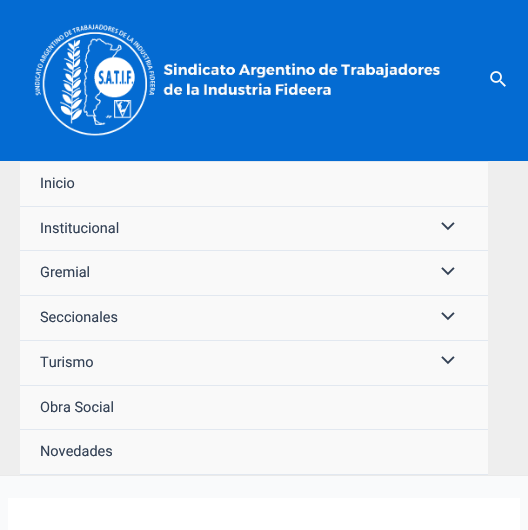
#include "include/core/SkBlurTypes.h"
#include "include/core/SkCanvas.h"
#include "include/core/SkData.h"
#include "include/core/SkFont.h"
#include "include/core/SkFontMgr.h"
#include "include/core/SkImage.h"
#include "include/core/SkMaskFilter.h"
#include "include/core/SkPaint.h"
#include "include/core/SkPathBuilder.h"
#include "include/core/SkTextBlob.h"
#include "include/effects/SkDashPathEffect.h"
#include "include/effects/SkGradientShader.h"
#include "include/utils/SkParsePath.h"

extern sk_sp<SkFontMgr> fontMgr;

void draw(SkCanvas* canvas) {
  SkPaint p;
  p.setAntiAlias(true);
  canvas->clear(SkColorSetRGB(249, 250, 251));
  p.setColor(SkColorSetRGB(4, 107, 210));
  canvas->drawRect(SkRect::MakeLTRB(0, 0, 528, 161), p);
  canvas->drawImageRect(SkImages::DeferredFromEncodedData(SkData::MakeFromFileName("images/1.png")), SkRect::MakeLTRB(34, 24, 441, 136), SkSamplingOptions());
  canvas->drawImageRect(SkImages::DeferredFromEncodedData(SkData::MakeFromFileName("images/2.png")), SkRect::MakeLTRB(490, 71, 506, 87), SkSamplingOptions());
  p.setColor(SkColorSetRGB(238, 238, 238));
  canvas->drawRect(SkRect::MakeLTRB(0, 161, 528, 475), p);
  p.setColor(SkColorSetRGB(234, 234, 234));
  canvas->drawRect(SkRect::MakeLTRB(0, 475, 528, 476), p);
  p.setColor(SkColorSetRGB(249, 249, 249));
  canvas->drawRect(SkRect::MakeLTRB(20, 162, 488, 474), p);
  p.setColor(SkColorSetRGB(226, 232, 240));
  canvas->drawRect(SkRect::MakeLTRB(20, 161, 488, 162), p);
  canvas->drawRect(SkRect::MakeLTRB(20, 206, 488, 207), p);
  canvas->drawRect(SkRect::MakeLTRB(20, 250, 488, 251), p);
  canvas->drawImageRect(SkImages::DeferredFromEncodedData(SkData::MakeFromFileName("images/3.png")), SkRect::MakeLTRB(441, 222, 455, 231), SkSamplingOptions());
  canvas->drawRect(SkRect::MakeLTRB(20, 295, 488, 296), p);
  canvas->drawImageRect(SkImages::DeferredFromEncodedData(SkData::MakeFromFileName("images/3.png")), SkRect::MakeLTRB(441, 267, 455, 276), SkSamplingOptions());
  canvas->drawRect(SkRect::MakeLTRB(20, 340, 488, 341), p);
  canvas->drawImageRect(SkImages::DeferredFromEncodedData(SkData::MakeFromFileName("images/3.png")), SkRect::MakeLTRB(441, 312, 455, 321), SkSamplingOptions());
  canvas->drawRect(SkRect::MakeLTRB(20, 385, 488, 386), p);
  canvas->drawImageRect(SkImages::DeferredFromEncodedData(SkData::MakeFromFileName("images/3.png")), SkRect::MakeLTRB(441, 356, 455, 365), SkSamplingOptions());
  canvas->drawRect(SkRect::MakeLTRB(20, 429, 488, 430), p);
  canvas->drawRect(SkRect::MakeLTRB(20, 474, 488, 475), p);
  p.setColor(SK_ColorWHITE);
  canvas->drawRect(SkRect::MakeLTRB(8, 498, 520, 530), p);
  SkFont font1(fontMgr->matchFamilyStyle("Roboto", SkFontStyle::Normal()), 14.5f);
  font1.setSubpixel(true);
  p.setColor(SkColorSetRGB(51, 65, 85));
  canvas->drawString("Inicio", 40, 188, font1, p);
  canvas->drawString("Institucional", 40, 233, font1, p);
  canvas->drawString("Gremial", 40, 277, font1, p);
  canvas->drawString("Seccionales", 40, 322, font1, p);
  canvas->drawString("Turismo", 40, 367, font1, p);
  canvas->drawString("Obra Social", 40, 412, font1, p);
  canvas->drawString("Novedades", 40, 456, font1, p);
}
